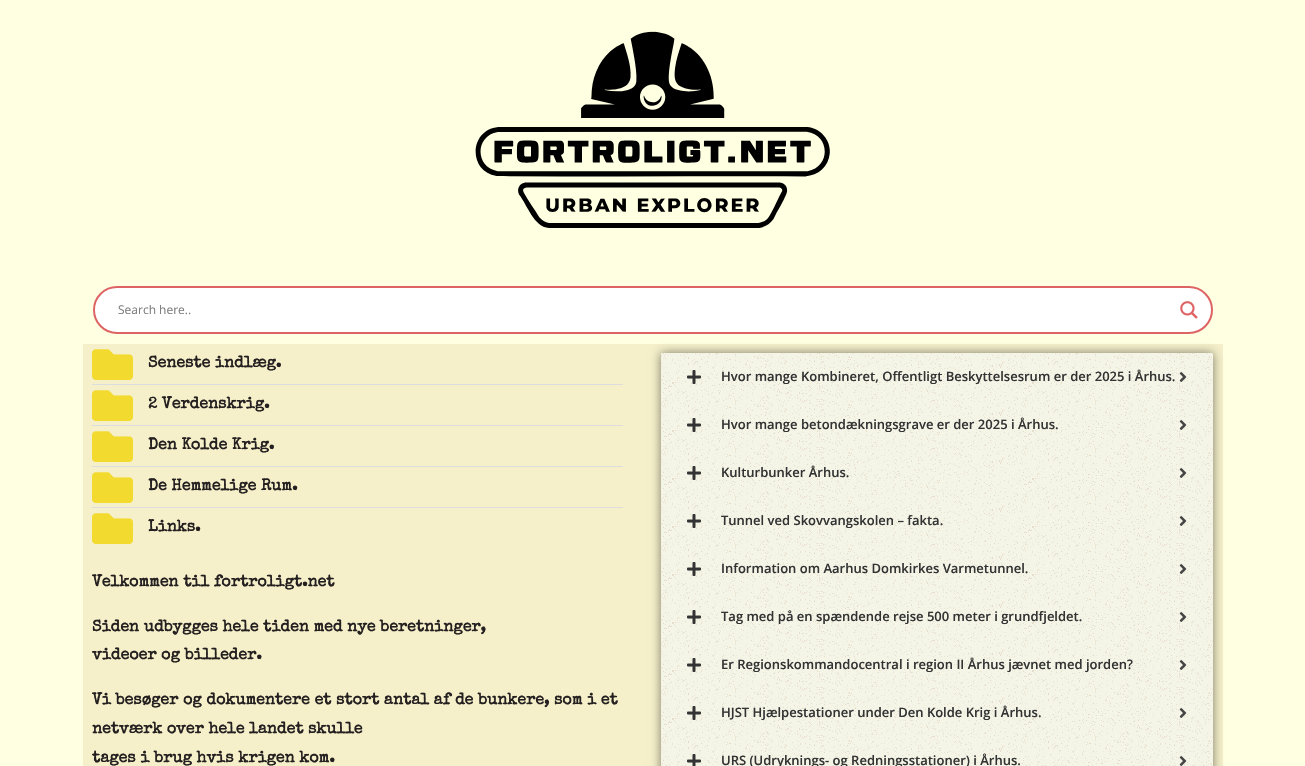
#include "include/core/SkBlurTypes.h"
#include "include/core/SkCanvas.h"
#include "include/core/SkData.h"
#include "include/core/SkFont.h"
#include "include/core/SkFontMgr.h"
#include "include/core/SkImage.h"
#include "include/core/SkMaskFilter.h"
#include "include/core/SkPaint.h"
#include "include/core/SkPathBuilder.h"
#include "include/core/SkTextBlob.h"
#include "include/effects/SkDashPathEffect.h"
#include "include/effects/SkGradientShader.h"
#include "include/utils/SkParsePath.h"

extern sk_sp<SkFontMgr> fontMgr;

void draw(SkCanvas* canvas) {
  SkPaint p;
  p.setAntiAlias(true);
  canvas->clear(SkColorSetRGB(255, 255, 226));
  canvas->drawImageRect(SkImages::DeferredFromEncodedData(SkData::MakeFromFileName("images/1.png")), SkRect::MakeLTRB(475, 31, 830, 228), SkSamplingOptions());
  p.setColor(SK_ColorWHITE);
  canvas->drawRoundRect(SkRect::MakeLTRB(94, 287, 1212, 333), 23, 23, p);
  p.setStyle(SkPaint::kStroke_Style);
  p.setStrokeWidth(2);
  p.setColor(SkColorSetRGB(222, 100, 100));
  canvas->drawRoundRect(SkRect::MakeLTRB(94, 287, 1212, 333), 23, 23, p);
  canvas->drawImageRect(SkImages::DeferredFromEncodedData(SkData::MakeFromFileName("images/2.png")), SkRect::MakeLTRB(1180, 301, 1198, 319), SkSamplingOptions());
  p.setStyle(SkPaint::kFill_Style);
  p.setColor(SkColorSetRGB(245, 240, 202));
  canvas->drawRect(SkRect::MakeLTRB(83, 344, 1223, 766), p);
  canvas->drawImageRect(SkImages::DeferredFromEncodedData(SkData::MakeFromFileName("images/3.png")), SkRect::MakeLTRB(92, 349, 133, 380), SkSamplingOptions());
  p.setColor(SkColorSetRGB(221, 221, 221));
  canvas->drawRect(SkRect::MakeLTRB(92, 384, 623, 385), p);
  canvas->drawImageRect(SkImages::DeferredFromEncodedData(SkData::MakeFromFileName("images/3.png")), SkRect::MakeLTRB(92, 390, 133, 421), SkSamplingOptions());
  canvas->drawRect(SkRect::MakeLTRB(92, 425, 623, 426), p);
  canvas->drawImageRect(SkImages::DeferredFromEncodedData(SkData::MakeFromFileName("images/3.png")), SkRect::MakeLTRB(92, 431, 133, 462), SkSamplingOptions());
  canvas->drawRect(SkRect::MakeLTRB(92, 466, 623, 467), p);
  canvas->drawImageRect(SkImages::DeferredFromEncodedData(SkData::MakeFromFileName("images/3.png")), SkRect::MakeLTRB(92, 472, 133, 503), SkSamplingOptions());
  canvas->drawRect(SkRect::MakeLTRB(92, 507, 623, 508), p);
  canvas->drawImageRect(SkImages::DeferredFromEncodedData(SkData::MakeFromFileName("images/3.png")), SkRect::MakeLTRB(92, 513, 133, 544), SkSamplingOptions());
  p.setColor(SkColorSetARGB(128, 0, 0, 0));
  p.setMaskFilter(SkMaskFilter::MakeBlur(kNormal_SkBlurStyle, 5));
  canvas->drawRect(SkRect::MakeLTRB(661, 353, 1213, 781), p);
  p.setMaskFilter(nullptr);
  p.setColor(SkColorSetRGB(241, 241, 241));
  canvas->drawRect(SkRect::MakeLTRB(661, 353, 1213, 766), p);
  canvas->drawImageRect(SkImages::DeferredFromEncodedData(SkData::MakeFromFileName("images/4.png")), SkRect::MakeLTRB(661, 353, 1213, 401), SkSamplingOptions());
  canvas->drawImageRect(SkImages::DeferredFromEncodedData(SkData::MakeFromFileName("images/5.png")), SkRect::MakeLTRB(687, 370, 701, 384), SkSamplingOptions());
  canvas->drawImageRect(SkImages::DeferredFromEncodedData(SkData::MakeFromFileName("images/6.png")), SkRect::MakeLTRB(1179, 372, 1187, 382), SkSamplingOptions());
  canvas->drawImageRect(SkImages::DeferredFromEncodedData(SkData::MakeFromFileName("images/4.png")), SkRect::MakeLTRB(661, 401, 1213, 449), SkSamplingOptions());
  canvas->drawImageRect(SkImages::DeferredFromEncodedData(SkData::MakeFromFileName("images/5.png")), SkRect::MakeLTRB(687, 418, 701, 432), SkSamplingOptions());
  canvas->drawImageRect(SkImages::DeferredFromEncodedData(SkData::MakeFromFileName("images/6.png")), SkRect::MakeLTRB(1179, 420, 1187, 430), SkSamplingOptions());
  canvas->drawImageRect(SkImages::DeferredFromEncodedData(SkData::MakeFromFileName("images/4.png")), SkRect::MakeLTRB(661, 449, 1213, 497), SkSamplingOptions());
  canvas->drawImageRect(SkImages::DeferredFromEncodedData(SkData::MakeFromFileName("images/5.png")), SkRect::MakeLTRB(687, 466, 701, 480), SkSamplingOptions());
  canvas->drawImageRect(SkImages::DeferredFromEncodedData(SkData::MakeFromFileName("images/6.png")), SkRect::MakeLTRB(1179, 468, 1187, 478), SkSamplingOptions());
  canvas->drawImageRect(SkImages::DeferredFromEncodedData(SkData::MakeFromFileName("images/4.png")), SkRect::MakeLTRB(661, 497, 1213, 545), SkSamplingOptions());
  canvas->drawImageRect(SkImages::DeferredFromEncodedData(SkData::MakeFromFileName("images/5.png")), SkRect::MakeLTRB(687, 514, 701, 528), SkSamplingOptions());
  canvas->drawImageRect(SkImages::DeferredFromEncodedData(SkData::MakeFromFileName("images/6.png")), SkRect::MakeLTRB(1179, 516, 1187, 526), SkSamplingOptions());
  canvas->drawImageRect(SkImages::DeferredFromEncodedData(SkData::MakeFromFileName("images/4.png")), SkRect::MakeLTRB(661, 545, 1213, 593), SkSamplingOptions());
  canvas->drawImageRect(SkImages::DeferredFromEncodedData(SkData::MakeFromFileName("images/5.png")), SkRect::MakeLTRB(687, 562, 701, 576), SkSamplingOptions());
  canvas->drawImageRect(SkImages::DeferredFromEncodedData(SkData::MakeFromFileName("images/6.png")), SkRect::MakeLTRB(1179, 564, 1187, 574), SkSamplingOptions());
  canvas->drawImageRect(SkImages::DeferredFromEncodedData(SkData::MakeFromFileName("images/4.png")), SkRect::MakeLTRB(661, 593, 1213, 641), SkSamplingOptions());
  canvas->drawImageRect(SkImages::DeferredFromEncodedData(SkData::MakeFromFileName("images/5.png")), SkRect::MakeLTRB(687, 610, 701, 624), SkSamplingOptions());
  canvas->drawImageRect(SkImages::DeferredFromEncodedData(SkData::MakeFromFileName("images/6.png")), SkRect::MakeLTRB(1179, 612, 1187, 622), SkSamplingOptions());
  canvas->drawImageRect(SkImages::DeferredFromEncodedData(SkData::MakeFromFileName("images/4.png")), SkRect::MakeLTRB(661, 641, 1213, 689), SkSamplingOptions());
  canvas->drawImageRect(SkImages::DeferredFromEncodedData(SkData::MakeFromFileName("images/5.png")), SkRect::MakeLTRB(687, 658, 701, 672), SkSamplingOptions());
  canvas->drawImageRect(SkImages::DeferredFromEncodedData(SkData::MakeFromFileName("images/6.png")), SkRect::MakeLTRB(1179, 660, 1187, 670), SkSamplingOptions());
  canvas->drawImageRect(SkImages::DeferredFromEncodedData(SkData::MakeFromFileName("images/4.png")), SkRect::MakeLTRB(661, 689, 1213, 737), SkSamplingOptions());
  canvas->drawImageRect(SkImages::DeferredFromEncodedData(SkData::MakeFromFileName("images/5.png")), SkRect::MakeLTRB(687, 706, 701, 720), SkSamplingOptions());
  canvas->drawImageRect(SkImages::DeferredFromEncodedData(SkData::MakeFromFileName("images/6.png")), SkRect::MakeLTRB(1179, 708, 1187, 718), SkSamplingOptions());
  canvas->drawImageRect(SkImages::DeferredFromEncodedData(SkData::MakeFromFileName("images/7.png")), SkRect::MakeLTRB(661, 737, 1213, 766), SkSamplingOptions());
  canvas->drawImageRect(SkImages::DeferredFromEncodedData(SkData::MakeFromFileName("images/8.png")), SkRect::MakeLTRB(687, 754, 701, 766), SkSamplingOptions());
  canvas->drawImageRect(SkImages::DeferredFromEncodedData(SkData::MakeFromFileName("images/6.png")), SkRect::MakeLTRB(1179, 756, 1187, 766), SkSamplingOptions());
  SkFont font1(fontMgr->matchFamilyStyle("Open Sans", SkFontStyle::Normal()), 12);
  font1.setSubpixel(true);
  p.setColor(SkColorSetRGB(125, 125, 125));
  canvas->drawString("Search here..", 118, 314, font1, p);
  SkFont font2(fontMgr->matchFamilyStyle("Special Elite", SkFontStyle::Bold()), 16);
  font2.setSubpixel(true);
  p.setColor(SkColorSetRGB(37, 32, 32));
  canvas->drawString("Seneste indlæg.", 148, 367, font2, p);
  canvas->drawString("2 Verdenskrig.", 148, 408, font2, p);
  canvas->drawString("Den Kolde Krig.", 148, 449, font2, p);
  canvas->drawString("De Hemmelige Rum.", 148, 490, font2, p);
  canvas->drawString("Links.", 148, 531, font2, p);
  canvas->drawString("Velkommen til fortroligt.net", 92, 586, font2, p);
  canvas->drawString("Siden udbygges hele tiden med nye beretninger,", 92, 631, font2, p);
  canvas->drawString("videoer og billeder.", 92, 659, font2, p);
  canvas->drawString("Vi besøger og dokumentere et stort antal af de bunkere, som i et", 92, 704, font2, p);
  canvas->drawString("netværk over hele landet skulle", 92, 733, font2, p);
  canvas->drawString("tages i brug hvis krigen kom.", 92, 762, font2, p);
  SkFont font3(fontMgr->matchFamilyStyle("Open Sans", SkFontStyle(600, SkFontStyle::kNormal_Width, SkFontStyle::kUpright_Slant)), 13);
  font3.setSubpixel(true);
  p.setColor(SkColorSetRGB(51, 51, 51));
  canvas->drawString("Hvor mange Kombineret, Offentligt Beskyttelsesrum er der 2025 i Århus.", 721, 381, font3, p);
  canvas->drawString("Hvor mange betondækningsgrave er der 2025 i Århus.", 721, 429, font3, p);
  canvas->drawString("Kulturbunker Århus.", 721, 477, font3, p);
  canvas->drawString("Tunnel ved Skovvangskolen – fakta.", 721, 525, font3, p);
  canvas->drawString("Information om Aarhus Domkirkes Varmetunnel.", 721, 573, font3, p);
  canvas->drawString("Tag med på en spændende rejse 500 meter i grundfjeldet.", 721, 621, font3, p);
  canvas->drawString("Er Regionskommandocentral i region II Århus jævnet med jorden?", 721, 669, font3, p);
  canvas->drawString("HJST Hjælpestationer under Den Kolde Krig i Århus.", 721, 717, font3, p);
  canvas->drawString("URS (Udryknings- og Redningsstationer) i Århus.", 721, 765, font3, p);
}
